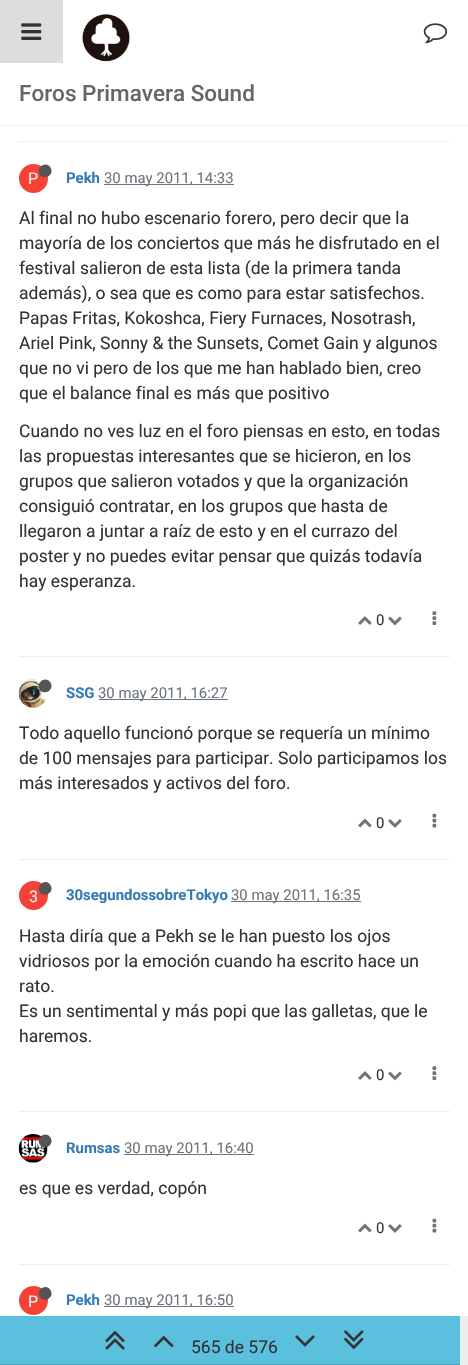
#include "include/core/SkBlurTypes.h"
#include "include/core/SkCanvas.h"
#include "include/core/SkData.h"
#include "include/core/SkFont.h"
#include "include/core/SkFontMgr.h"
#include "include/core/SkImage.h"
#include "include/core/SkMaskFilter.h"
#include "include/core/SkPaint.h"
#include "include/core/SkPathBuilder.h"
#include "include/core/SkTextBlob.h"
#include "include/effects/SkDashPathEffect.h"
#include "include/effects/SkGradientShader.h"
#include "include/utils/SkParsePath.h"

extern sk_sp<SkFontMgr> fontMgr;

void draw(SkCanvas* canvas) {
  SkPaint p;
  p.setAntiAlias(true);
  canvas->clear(SK_ColorWHITE);
  p.setColor(SkColorSetRGB(238, 238, 238));
  canvas->drawRect(SkRect::MakeLTRB(0, 125, 468, 126), p);
  p.setColor(SkColorSetRGB(221, 221, 221));
  canvas->drawRect(SkRect::MakeLTRB(0, 0, 63, 63), p);
  canvas->drawImageRect(SkImages::DeferredFromEncodedData(SkData::MakeFromFileName("images/1.png")), SkRect::MakeLTRB(21, 23, 42, 40), SkSamplingOptions());
  canvas->drawImageRect(SkImages::DeferredFromEncodedData(SkData::MakeFromFileName("images/2.png")), SkRect::MakeLTRB(82, 14, 130, 62), SkSamplingOptions());
  canvas->drawImageRect(SkImages::DeferredFromEncodedData(SkData::MakeFromFileName("images/3.png")), SkRect::MakeLTRB(423, 23, 448, 44), SkSamplingOptions());
  p.setColor(SkColorSetRGB(238, 238, 238));
  canvas->drawRect(SkRect::MakeLTRB(19, 141, 450, 142), p);
  p.setColor(SkColorSetRGB(244, 67, 54));
  canvas->drawCircle(33.5f, 178.5f, 14.5f, p);
  p.setColor(SkColorSetRGB(85, 85, 85));
  canvas->drawPath(SkPathBuilder().moveTo(50.5f, 167.5f).cubicTo(55, 175, 44, 181.5f, 39.5f, 174).cubicTo(35.5f, 167, 46.5f, 160.5f, 50.5f, 167.5f).close().detach(), p);
  p.setColor(SkColorSetRGB(108, 117, 125));
  canvas->drawRect(SkRect::MakeLTRB(104, 184, 234, 185), p);
  canvas->drawImageRect(SkImages::DeferredFromEncodedData(SkData::MakeFromFileName("images/4.png")), SkRect::MakeLTRB(358, 616, 372, 625), SkSamplingOptions());
  canvas->drawImageRect(SkImages::DeferredFromEncodedData(SkData::MakeFromFileName("images/5.png")), SkRect::MakeLTRB(388, 616, 402, 626), SkSamplingOptions());
  canvas->drawImageRect(SkImages::DeferredFromEncodedData(SkData::MakeFromFileName("images/6.png")), SkRect::MakeLTRB(432, 611, 437, 625), SkSamplingOptions());
  p.setColor(SkColorSetRGB(238, 238, 238));
  canvas->drawRect(SkRect::MakeLTRB(19, 656, 450, 657), p);
  canvas->drawImageRect(SkImages::DeferredFromEncodedData(SkData::MakeFromFileName("images/7.png")), SkRect::MakeLTRB(18, 679, 48, 708), SkSamplingOptions());
  p.setColor(SkColorSetRGB(85, 85, 85));
  canvas->drawPath(SkPathBuilder().moveTo(50.5f, 682.5f).cubicTo(55, 690, 44, 696.5f, 39.5f, 689).cubicTo(35.5f, 682, 46.5f, 675.5f, 50.5f, 682.5f).close().detach(), p);
  p.setColor(SkColorSetRGB(108, 117, 125));
  canvas->drawRect(SkRect::MakeLTRB(99, 699, 228, 700), p);
  canvas->drawImageRect(SkImages::DeferredFromEncodedData(SkData::MakeFromFileName("images/8.png")), SkRect::MakeLTRB(358, 818, 372, 828), SkSamplingOptions());
  canvas->drawImageRect(SkImages::DeferredFromEncodedData(SkData::MakeFromFileName("images/9.png")), SkRect::MakeLTRB(388, 819, 402, 828), SkSamplingOptions());
  canvas->drawImageRect(SkImages::DeferredFromEncodedData(SkData::MakeFromFileName("images/10.png")), SkRect::MakeLTRB(432, 813, 437, 828), SkSamplingOptions());
  p.setColor(SkColorSetRGB(238, 238, 238));
  canvas->drawRect(SkRect::MakeLTRB(19, 859, 450, 860), p);
  p.setColor(SkColorSetRGB(244, 67, 54));
  canvas->drawCircle(33.5f, 895.5f, 14.5f, p);
  p.setColor(SkColorSetRGB(85, 85, 85));
  canvas->drawPath(SkPathBuilder().moveTo(50.5f, 885).cubicTo(55, 892.5f, 44, 899, 39.5f, 891.5f).cubicTo(35.5f, 884.5f, 46.5f, 878, 50.5f, 885).close().detach(), p);
  p.setColor(SkColorSetRGB(108, 117, 125));
  canvas->drawRect(SkRect::MakeLTRB(231, 901, 361, 902), p);
  canvas->drawImageRect(SkImages::DeferredFromEncodedData(SkData::MakeFromFileName("images/4.png")), SkRect::MakeLTRB(358, 1071, 372, 1080), SkSamplingOptions());
  canvas->drawImageRect(SkImages::DeferredFromEncodedData(SkData::MakeFromFileName("images/5.png")), SkRect::MakeLTRB(388, 1071, 402, 1081), SkSamplingOptions());
  canvas->drawImageRect(SkImages::DeferredFromEncodedData(SkData::MakeFromFileName("images/6.png")), SkRect::MakeLTRB(432, 1066, 437, 1080), SkSamplingOptions());
  p.setColor(SkColorSetRGB(238, 238, 238));
  canvas->drawRect(SkRect::MakeLTRB(19, 1111, 450, 1112), p);
  canvas->drawImageRect(SkImages::DeferredFromEncodedData(SkData::MakeFromFileName("images/11.png")), SkRect::MakeLTRB(18, 1134, 48, 1163), SkSamplingOptions());
  p.setColor(SkColorSetRGB(85, 85, 85));
  canvas->drawPath(SkPathBuilder().moveTo(50.5f, 1137.5f).cubicTo(55, 1145, 44, 1151.5f, 39.5f, 1144).cubicTo(35.5f, 1137, 46.5f, 1130.5f, 50.5f, 1137.5f).close().detach(), p);
  p.setColor(SkColorSetRGB(108, 117, 125));
  canvas->drawRect(SkRect::MakeLTRB(124, 1154, 254, 1155), p);
  canvas->drawImageRect(SkImages::DeferredFromEncodedData(SkData::MakeFromFileName("images/8.png")), SkRect::MakeLTRB(358, 1223, 372, 1233), SkSamplingOptions());
  canvas->drawImageRect(SkImages::DeferredFromEncodedData(SkData::MakeFromFileName("images/9.png")), SkRect::MakeLTRB(388, 1224, 402, 1233), SkSamplingOptions());
  canvas->drawImageRect(SkImages::DeferredFromEncodedData(SkData::MakeFromFileName("images/10.png")), SkRect::MakeLTRB(432, 1218, 437, 1233), SkSamplingOptions());
  p.setColor(SkColorSetRGB(238, 238, 238));
  canvas->drawRect(SkRect::MakeLTRB(19, 1264, 450, 1265), p);
  p.setColor(SkColorSetRGB(244, 67, 54));
  canvas->drawCircle(33.5f, 1300.5f, 14.5f, p);
  p.setColor(SkColorSetRGB(85, 85, 85));
  canvas->drawPath(SkPathBuilder().moveTo(50.5f, 1290).cubicTo(55, 1297.5f, 44, 1304, 39.5f, 1296.5f).cubicTo(35.5f, 1289.5f, 46.5f, 1283, 50.5f, 1290).close().detach(), p);
  p.setColor(SkColorSetRGB(108, 117, 125));
  canvas->drawRect(SkRect::MakeLTRB(104, 1306, 234, 1307), p);
  p.setColor(SkColorSetRGB(238, 238, 238));
  canvas->drawRect(SkRect::MakeLTRB(460, 1316, 468, 1365), p);
  p.setColor(SkColorSetRGB(91, 192, 222));
  canvas->drawRect(SkRect::MakeLTRB(0, 1316, 460, 1364), p);
  p.setColor(SkColorSetRGB(77, 163, 189));
  canvas->drawRect(SkRect::MakeLTRB(0, 1364, 460, 1365), p);
  canvas->drawImageRect(SkImages::DeferredFromEncodedData(SkData::MakeFromFileName("images/12.png")), SkRect::MakeLTRB(105, 1331, 125, 1350), SkSamplingOptions());
  canvas->drawImageRect(SkImages::DeferredFromEncodedData(SkData::MakeFromFileName("images/13.png")), SkRect::MakeLTRB(154, 1335, 174, 1348), SkSamplingOptions());
  canvas->drawImageRect(SkImages::DeferredFromEncodedData(SkData::MakeFromFileName("images/14.png")), SkRect::MakeLTRB(295, 1335, 315, 1347), SkSamplingOptions());
  canvas->drawImageRect(SkImages::DeferredFromEncodedData(SkData::MakeFromFileName("images/15.png")), SkRect::MakeLTRB(344, 1330, 364, 1350), SkSamplingOptions());
  SkFont font1(fontMgr->matchFamilyStyle("Roboto", SkFontStyle(500, SkFontStyle::kNormal_Width, SkFontStyle::kUpright_Slant)), 22.5f);
  font1.setSubpixel(true);
  p.setColor(SkColorSetRGB(102, 102, 102));
  canvas->drawString("Foros Primavera Sound", 19, 101, font1, p);
  SkFont font2(fontMgr->matchFamilyStyle("Roboto", SkFontStyle::Normal()), 16);
  font2.setSubpixel(true);
  p.setColor(SkColorSetRGB(238, 238, 238));
  canvas->drawString("P", 28, 184, font2, p);
  SkFont font3(fontMgr->matchFamilyStyle("Roboto", SkFontStyle::Bold()), 14.9f);
  font3.setSubpixel(true);
  p.setColor(SkColorSetRGB(51, 122, 183));
  canvas->drawString("Pekh", 66, 183, font3, p);
  SkFont font4(fontMgr->matchFamilyStyle("Roboto", SkFontStyle::Normal()), 14.9f);
  font4.setSubpixel(true);
  p.setColor(SkColorSetRGB(108, 117, 125));
  canvas->drawString("30 may 2011, 14:33", 104, 183, font4, p);
  SkFont font5(fontMgr->matchFamilyStyle("Roboto", SkFontStyle::Normal()), 17.5f);
  font5.setSubpixel(true);
  p.setColor(SkColorSetRGB(51, 51, 51));
  canvas->drawString("Al final no hubo escenario forero, pero decir que la", 19, 224, font5, p);
  canvas->drawString("mayoría de los conciertos que más he disfrutado en el", 19, 249, font5, p);
  canvas->drawString("festival salieron de esta lista (de la primera tanda", 19, 274, font5, p);
  canvas->drawString("además), o sea que es como para estar satisfechos.", 19, 299, font5, p);
  canvas->drawString("Papas Fritas, Kokoshca, Fiery Furnaces, Nosotrash,", 19, 324, font5, p);
  canvas->drawString("Ariel Pink, Sonny & the Sunsets, Comet Gain y algunos", 19, 349, font5, p);
  canvas->drawString("que no vi pero de los que me han hablado bien, creo", 19, 374, font5, p);
  canvas->drawString("que el balance final es más que positivo", 19, 399, font5, p);
  canvas->drawString("Cuando no ves luz en el foro piensas en esto, en todas", 19, 437, font5, p);
  canvas->drawString("las propuestas interesantes que se hicieron, en los", 19, 462, font5, p);
  canvas->drawString("grupos que salieron votados y que la organización", 19, 487, font5, p);
  canvas->drawString("consiguió contratar, en los grupos que hasta de", 19, 512, font5, p);
  canvas->drawString("llegaron a juntar a raíz de esto y en el currazo del", 19, 537, font5, p);
  canvas->drawString("poster y no puedes evitar pensar que quizás todavía", 19, 562, font5, p);
  canvas->drawString("hay esperanza.", 19, 587, font5, p);
  canvas->drawString("0", 376, 625, font4, p);
  p.setColor(SkColorSetRGB(51, 122, 183));
  canvas->drawString("SSG", 66, 698, font3, p);
  p.setColor(SkColorSetRGB(108, 117, 125));
  canvas->drawString("30 may 2011, 16:27", 98, 698, font4, p);
  p.setColor(SkColorSetRGB(51, 51, 51));
  canvas->drawString("Todo aquello funcionó porque se requería un mínimo", 19, 739, font5, p);
  canvas->drawString("de 100 mensajes para participar. Solo participamos los", 19, 764, font5, p);
  canvas->drawString("más interesados y activos del foro.", 19, 789, font5, p);
  canvas->drawString("0", 376, 828, font4, p);
  p.setColor(SkColorSetRGB(238, 238, 238));
  canvas->drawString("3", 29, 902, font2, p);
  p.setColor(SkColorSetRGB(51, 122, 183));
  canvas->drawString("30segundossobreTokyo", 66, 900, font3, p);
  p.setColor(SkColorSetRGB(108, 117, 125));
  canvas->drawString("30 may 2011, 16:35", 231, 900, font4, p);
  p.setColor(SkColorSetRGB(51, 51, 51));
  canvas->drawString("Hasta diría que a Pekh se le han puesto los ojos", 19, 942, font5, p);
  canvas->drawString("vidriosos por la emoción cuando ha escrito hace un", 19, 967, font5, p);
  canvas->drawString("rato.", 19, 992, font5, p);
  canvas->drawString("Es un sentimental y más popi que las galletas, que le", 19, 1017, font5, p);
  canvas->drawString("haremos.", 19, 1042, font5, p);
  canvas->drawString("0", 376, 1080, font4, p);
  p.setColor(SkColorSetRGB(51, 122, 183));
  canvas->drawString("Rumsas", 66, 1153, font3, p);
  p.setColor(SkColorSetRGB(108, 117, 125));
  canvas->drawString("30 may 2011, 16:40", 124, 1153, font4, p);
  p.setColor(SkColorSetRGB(51, 51, 51));
  canvas->drawString("es que es verdad, copón", 19, 1194, font5, p);
  canvas->drawString("0", 376, 1233, font4, p);
  p.setColor(SkColorSetRGB(238, 238, 238));
  canvas->drawString("P", 28, 1307, font2, p);
  p.setColor(SkColorSetRGB(51, 122, 183));
  canvas->drawString("Pekh", 66, 1305, font3, p);
  p.setColor(SkColorSetRGB(108, 117, 125));
  canvas->drawString("30 may 2011, 16:50", 104, 1305, font4, p);
  p.setColor(SkColorSetRGB(51, 51, 51));
  canvas->drawString("565 de 576", 191, 1353, font5, p);
}
